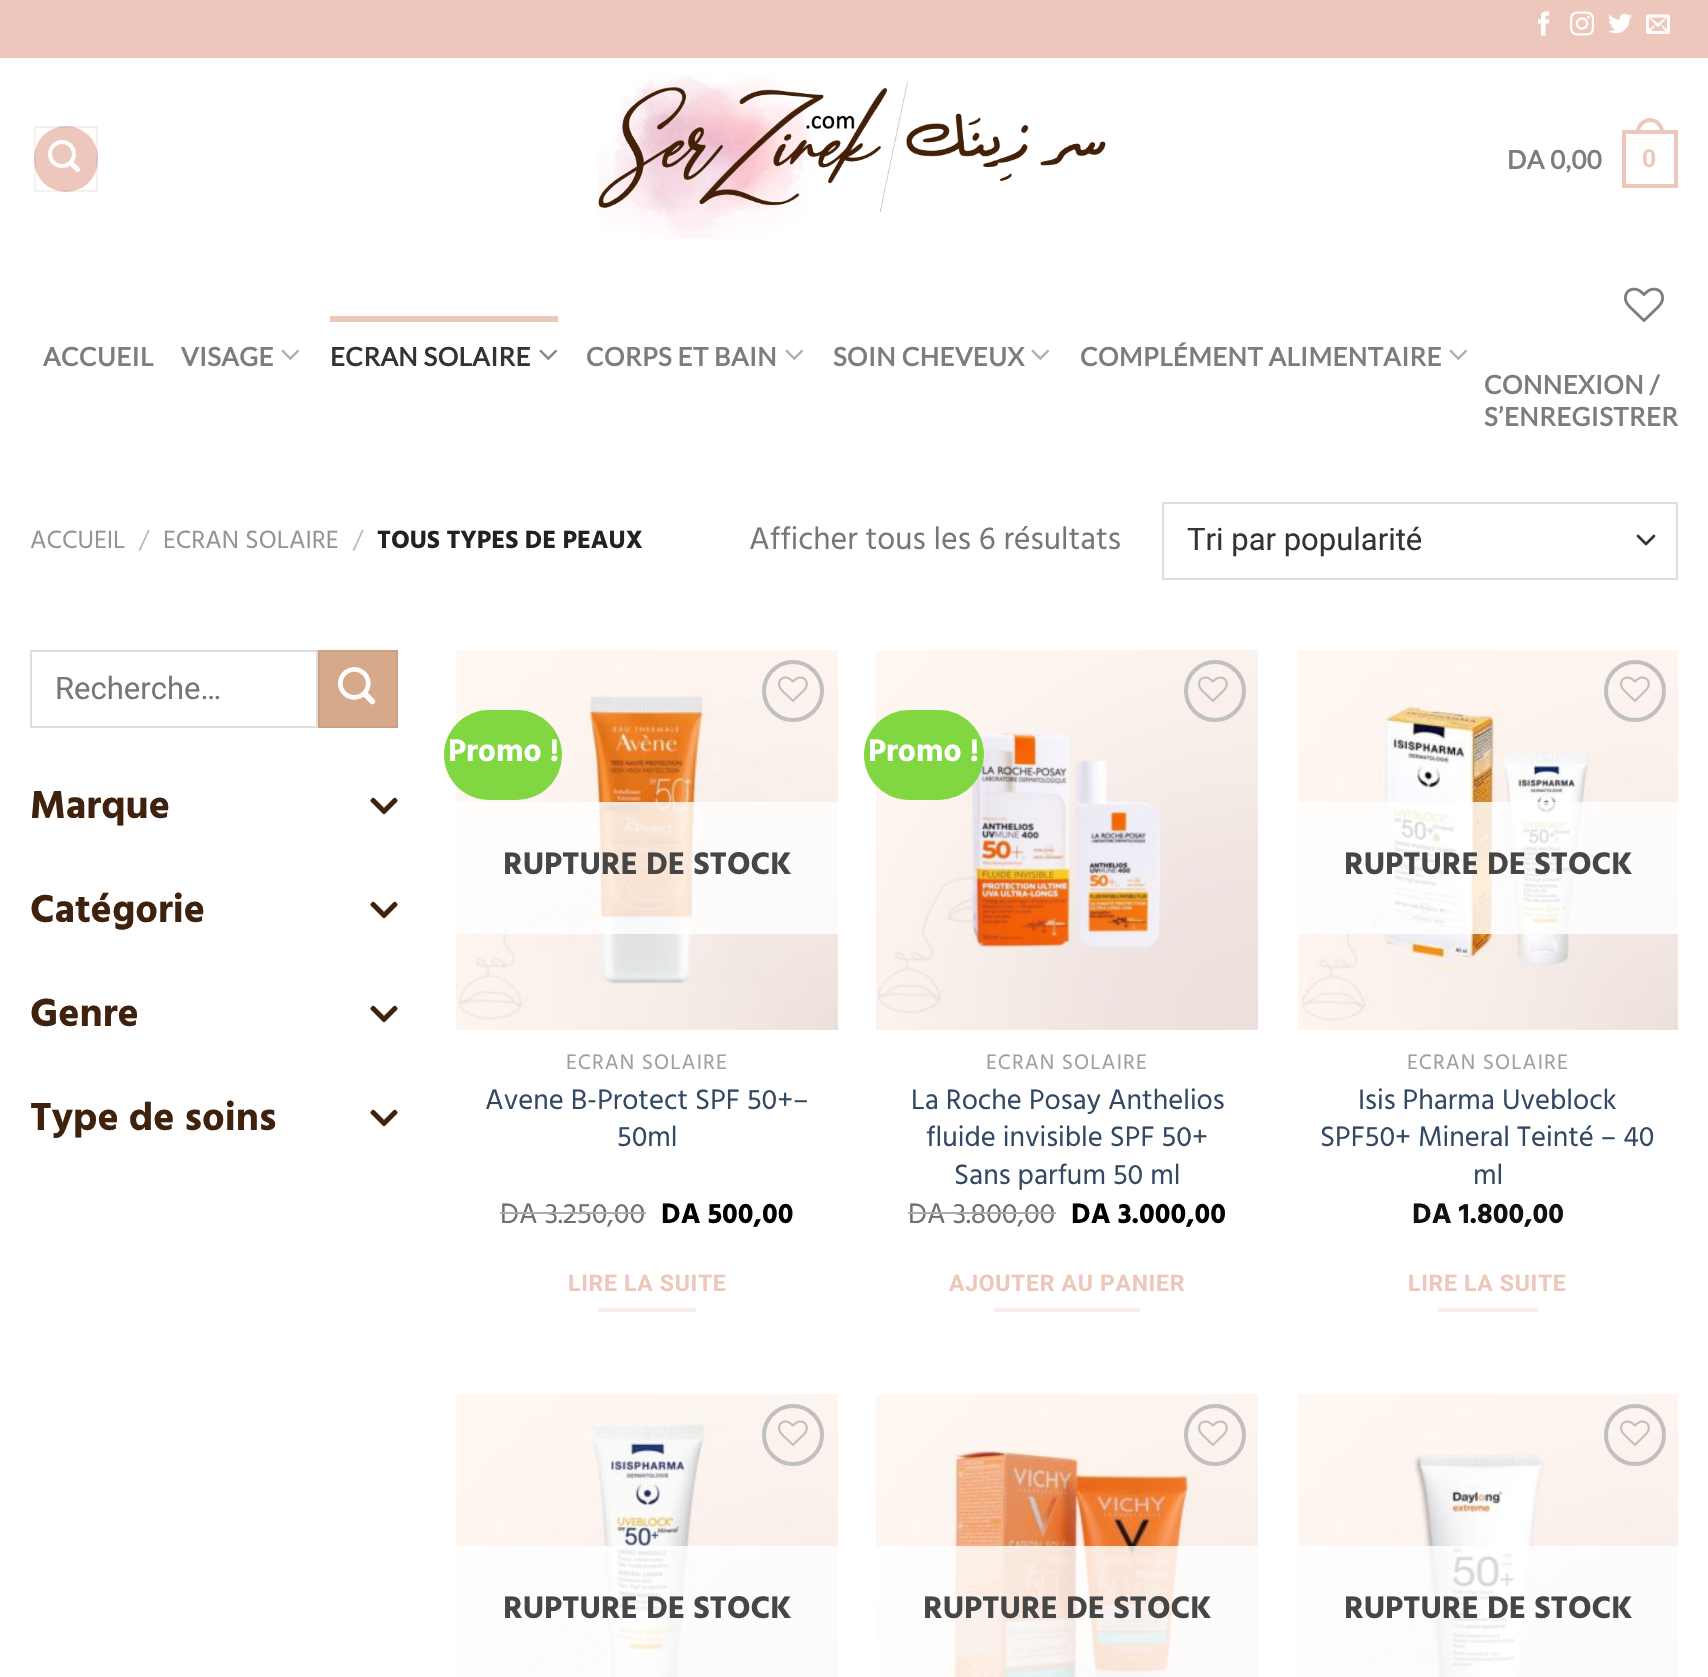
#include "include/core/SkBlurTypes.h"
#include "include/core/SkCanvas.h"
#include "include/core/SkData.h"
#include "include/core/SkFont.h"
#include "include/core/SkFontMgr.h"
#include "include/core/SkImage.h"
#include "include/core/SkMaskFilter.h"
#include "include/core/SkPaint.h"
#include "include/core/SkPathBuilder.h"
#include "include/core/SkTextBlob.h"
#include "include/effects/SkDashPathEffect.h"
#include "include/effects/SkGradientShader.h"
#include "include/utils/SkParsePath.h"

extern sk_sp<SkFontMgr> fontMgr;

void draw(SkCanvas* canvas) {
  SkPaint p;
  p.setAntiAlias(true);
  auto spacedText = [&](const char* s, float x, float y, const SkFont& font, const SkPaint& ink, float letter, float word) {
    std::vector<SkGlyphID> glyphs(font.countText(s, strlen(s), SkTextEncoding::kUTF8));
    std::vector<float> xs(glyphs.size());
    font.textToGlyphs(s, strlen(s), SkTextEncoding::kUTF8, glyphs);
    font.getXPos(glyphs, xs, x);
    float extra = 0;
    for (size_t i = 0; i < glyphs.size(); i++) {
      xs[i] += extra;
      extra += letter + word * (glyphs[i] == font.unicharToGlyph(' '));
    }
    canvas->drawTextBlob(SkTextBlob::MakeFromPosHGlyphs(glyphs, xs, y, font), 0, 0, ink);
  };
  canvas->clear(SK_ColorWHITE);
  p.setColor(SkColorSetRGB(238, 199, 188));
  canvas->drawRect(SkRect::MakeLTRB(0, 0, 1708, 58), p);
  canvas->drawImageRect(SkImages::DeferredFromEncodedData(SkData::MakeFromFileName("images/1.png")), SkRect::MakeLTRB(1538, 11, 1550, 36), SkSamplingOptions());
  canvas->drawImageRect(SkImages::DeferredFromEncodedData(SkData::MakeFromFileName("images/2.png")), SkRect::MakeLTRB(1570, 11, 1594, 36), SkSamplingOptions());
  canvas->drawImageRect(SkImages::DeferredFromEncodedData(SkData::MakeFromFileName("images/3.png")), SkRect::MakeLTRB(1608, 13, 1632, 34), SkSamplingOptions());
  canvas->drawImageRect(SkImages::DeferredFromEncodedData(SkData::MakeFromFileName("images/4.png")), SkRect::MakeLTRB(1646, 14, 1670, 34), SkSamplingOptions());
  canvas->drawRoundRect(SkRect::MakeLTRB(34, 126, 98, 192), 32, 32, p);
  p.setStyle(SkPaint::kStroke_Style);
  p.setStrokeWidth(2);
  p.setColor(SkColorSetARGB(13, 0, 0, 0));
  canvas->drawRect(SkRect::MakeLTRB(35, 127, 97, 191), p);
  canvas->drawImageRect(SkImages::DeferredFromEncodedData(SkData::MakeFromFileName("images/5.png")), SkRect::MakeLTRB(48, 140, 80, 172), SkSamplingOptions());
  canvas->drawImageRect(SkImages::DeferredFromEncodedData(SkData::MakeFromFileName("images/6.png")), SkRect::MakeLTRB(598, 74, 1106, 239), SkSamplingOptions());
  p.setStrokeWidth(4);
  p.setColor(SkColorSetRGB(238, 199, 188));
  canvas->drawRect(SkRect::MakeLTRB(1624, 132, 1676, 186), p);
  p.setStyle(SkPaint::kFill_Style);
  canvas->drawPath(SkPathBuilder(SkPathFillType::kEvenOdd).moveTo(1650, 118).cubicTo(1657.5f, 118, 1664, 124.5f, 1664, 132).lineTo(1664, 134).lineTo(1636, 134).lineTo(1636, 132).cubicTo(1636, 124.5f, 1642.5f, 118, 1650, 118).close().moveTo(1650, 122).cubicTo(1655.5f, 122, 1660, 126.5f, 1660, 132).lineTo(1660, 134).lineTo(1640, 134).lineTo(1640, 132).cubicTo(1640, 126.5f, 1644.5f, 122, 1650, 122).close().detach(), p);
  canvas->drawImageRect(SkImages::DeferredFromEncodedData(SkData::MakeFromFileName("images/7.png")), SkRect::MakeLTRB(281, 349, 300, 360), SkSamplingOptions());
  canvas->drawRect(SkRect::MakeLTRB(330, 316, 558, 322), p);
  canvas->drawImageRect(SkImages::DeferredFromEncodedData(SkData::MakeFromFileName("images/8.png")), SkRect::MakeLTRB(539, 349, 558, 360), SkSamplingOptions());
  canvas->drawImageRect(SkImages::DeferredFromEncodedData(SkData::MakeFromFileName("images/7.png")), SkRect::MakeLTRB(785, 349, 804, 360), SkSamplingOptions());
  canvas->drawImageRect(SkImages::DeferredFromEncodedData(SkData::MakeFromFileName("images/7.png")), SkRect::MakeLTRB(1031, 349, 1050, 360), SkSamplingOptions());
  canvas->drawImageRect(SkImages::DeferredFromEncodedData(SkData::MakeFromFileName("images/7.png")), SkRect::MakeLTRB(1449, 349, 1468, 360), SkSamplingOptions());
  canvas->drawImageRect(SkImages::DeferredFromEncodedData(SkData::MakeFromFileName("images/9.png")), SkRect::MakeLTRB(1624, 287, 1664, 322), SkSamplingOptions());
  p.setStyle(SkPaint::kStroke_Style);
  p.setStrokeWidth(2.7f);
  p.setStrokeCap(SkPaint::kRound_Cap);
  p.setStrokeJoin(SkPaint::kRound_Join);
  p.setColor(SkColorSetRGB(51, 51, 51));
  canvas->drawPath(SkPathBuilder().moveTo(1638, 536).lineTo(1646, 544).lineTo(1654, 536).detach(), p);
  p.setStrokeWidth(2);
  p.setStrokeCap(SkPaint::kButt_Cap);
  p.setStrokeJoin(SkPaint::kMiter_Join);
  p.setColor(SkColorSetRGB(221, 221, 221));
  canvas->drawRect(SkRect::MakeLTRB(1163, 503, 1677, 579), p);
  canvas->drawRect(SkRect::MakeLTRB(31, 651, 317, 727), p);
  p.setStyle(SkPaint::kFill_Style);
  p.setColor(SkColorSetRGB(213, 169, 138));
  canvas->drawRect(SkRect::MakeLTRB(319, 651, 397, 727), p);
  p.setStyle(SkPaint::kStroke_Style);
  p.setColor(SkColorSetRGB(202, 161, 131));
  canvas->drawRect(SkRect::MakeLTRB(319, 651, 397, 727), p);
  canvas->drawImageRect(SkImages::DeferredFromEncodedData(SkData::MakeFromFileName("images/10.png")), SkRect::MakeLTRB(338, 667, 376, 705), SkSamplingOptions());
  canvas->drawImageRect(SkImages::DeferredFromEncodedData(SkData::MakeFromFileName("images/11.png")), SkRect::MakeLTRB(370, 797, 398, 815), SkSamplingOptions());
  canvas->drawImageRect(SkImages::DeferredFromEncodedData(SkData::MakeFromFileName("images/11.png")), SkRect::MakeLTRB(370, 901, 398, 919), SkSamplingOptions());
  canvas->drawImageRect(SkImages::DeferredFromEncodedData(SkData::MakeFromFileName("images/11.png")), SkRect::MakeLTRB(370, 1005, 398, 1023), SkSamplingOptions());
  canvas->drawImageRect(SkImages::DeferredFromEncodedData(SkData::MakeFromFileName("images/11.png")), SkRect::MakeLTRB(370, 1109, 398, 1127), SkSamplingOptions());
  canvas->drawImageRect(SkImages::DeferredFromEncodedData(SkData::MakeFromFileName("images/12.png")), SkRect::MakeLTRB(456, 650, 838, 1030), SkSamplingOptions());
  p.setStyle(SkPaint::kFill_Style);
  p.setColor(SkColorSetRGB(129, 215, 66));
  canvas->drawRoundRect(SkRect::MakeLTRB(444, 710, 562, 800), 45, 45, p);
  p.setStyle(SkPaint::kStroke_Style);
  p.setStrokeWidth(4);
  p.setColor(SkColorSetRGB(192, 192, 192));
  canvas->drawCircle(793, 691, 29, p);
  canvas->drawImageRect(SkImages::DeferredFromEncodedData(SkData::MakeFromFileName("images/13.png")), SkRect::MakeLTRB(778, 676, 808, 702), SkSamplingOptions());
  p.setStyle(SkPaint::kFill_Style);
  p.setColor(SkColorSetARGB(207, 255, 255, 255));
  canvas->drawRect(SkRect::MakeLTRB(456, 802, 838, 934), p);
  p.setColor(SkColorSetRGB(250, 238, 235));
  canvas->drawRect(SkRect::MakeLTRB(598, 1308, 696, 1312), p);
  canvas->drawImageRect(SkImages::DeferredFromEncodedData(SkData::MakeFromFileName("images/14.png")), SkRect::MakeLTRB(876, 650, 1258, 1030), SkSamplingOptions());
  p.setColor(SkColorSetRGB(129, 215, 66));
  canvas->drawRoundRect(SkRect::MakeLTRB(864, 710, 984, 800), 45, 45, p);
  p.setStyle(SkPaint::kStroke_Style);
  p.setColor(SkColorSetRGB(192, 192, 192));
  canvas->drawCircle(1215, 691, 29, p);
  canvas->drawImageRect(SkImages::DeferredFromEncodedData(SkData::MakeFromFileName("images/15.png")), SkRect::MakeLTRB(1198, 676, 1228, 702), SkSamplingOptions());
  p.setStyle(SkPaint::kFill_Style);
  p.setColor(SkColorSetRGB(250, 238, 235));
  canvas->drawRect(SkRect::MakeLTRB(994, 1308, 1140, 1312), p);
  canvas->drawImageRect(SkImages::DeferredFromEncodedData(SkData::MakeFromFileName("images/16.png")), SkRect::MakeLTRB(1298, 650, 1678, 1030), SkSamplingOptions());
  p.setStyle(SkPaint::kStroke_Style);
  p.setColor(SkColorSetRGB(192, 192, 192));
  canvas->drawCircle(1635, 691, 29, p);
  canvas->drawImageRect(SkImages::DeferredFromEncodedData(SkData::MakeFromFileName("images/17.png")), SkRect::MakeLTRB(1620, 676, 1650, 702), SkSamplingOptions());
  p.setStyle(SkPaint::kFill_Style);
  p.setColor(SkColorSetARGB(207, 255, 255, 255));
  canvas->drawRect(SkRect::MakeLTRB(1298, 802, 1678, 934), p);
  p.setColor(SkColorSetRGB(250, 238, 235));
  canvas->drawRect(SkRect::MakeLTRB(1438, 1308, 1538, 1312), p);
  canvas->drawImageRect(SkImages::DeferredFromEncodedData(SkData::MakeFromFileName("images/18.png")), SkRect::MakeLTRB(456, 1394, 838, 1677), SkSamplingOptions());
  p.setStyle(SkPaint::kStroke_Style);
  p.setColor(SkColorSetRGB(192, 192, 192));
  canvas->drawCircle(793, 1435, 29, p);
  canvas->drawImageRect(SkImages::DeferredFromEncodedData(SkData::MakeFromFileName("images/13.png")), SkRect::MakeLTRB(778, 1420, 808, 1446), SkSamplingOptions());
  p.setStyle(SkPaint::kFill_Style);
  p.setColor(SkColorSetARGB(207, 255, 255, 255));
  canvas->drawRect(SkRect::MakeLTRB(456, 1546, 838, 1677), p);
  canvas->drawImageRect(SkImages::DeferredFromEncodedData(SkData::MakeFromFileName("images/19.png")), SkRect::MakeLTRB(876, 1394, 1258, 1677), SkSamplingOptions());
  p.setStyle(SkPaint::kStroke_Style);
  p.setColor(SkColorSetRGB(192, 192, 192));
  canvas->drawCircle(1215, 1435, 29, p);
  canvas->drawImageRect(SkImages::DeferredFromEncodedData(SkData::MakeFromFileName("images/13.png")), SkRect::MakeLTRB(1198, 1420, 1228, 1446), SkSamplingOptions());
  p.setStyle(SkPaint::kFill_Style);
  p.setColor(SkColorSetARGB(207, 255, 255, 255));
  canvas->drawRect(SkRect::MakeLTRB(876, 1546, 1258, 1677), p);
  canvas->drawImageRect(SkImages::DeferredFromEncodedData(SkData::MakeFromFileName("images/20.png")), SkRect::MakeLTRB(1298, 1394, 1678, 1677), SkSamplingOptions());
  p.setStyle(SkPaint::kStroke_Style);
  p.setColor(SkColorSetRGB(192, 192, 192));
  canvas->drawCircle(1635, 1435, 29, p);
  canvas->drawImageRect(SkImages::DeferredFromEncodedData(SkData::MakeFromFileName("images/17.png")), SkRect::MakeLTRB(1620, 1420, 1650, 1446), SkSamplingOptions());
  p.setStyle(SkPaint::kFill_Style);
  p.setColor(SkColorSetARGB(207, 255, 255, 255));
  canvas->drawRect(SkRect::MakeLTRB(1298, 1546, 1678, 1677), p);
  SkFont font1(fontMgr->matchFamilyStyle("Lato", SkFontStyle::Bold()), 25.6f);
  font1.setSubpixel(true);
  p.setColor(SkColorSetRGB(125, 125, 125));
  spacedText("DA 0,00", 1507, 169, font1, p, 0.5f, 0);
  SkFont font2(fontMgr->matchFamilyStyle("Liberation Sans", SkFontStyle::Bold()), 25.6f);
  font2.setSubpixel(true);
  p.setColor(SkColorSetRGB(238, 199, 188));
  spacedText("0", 1642, 167, font2, p, 0.5f, 0);
  p.setColor(SkColorSetRGB(125, 125, 125));
  spacedText("ACCUEIL", 43, 366, font1, p, 0.5f, 0);
  spacedText("VISAGE", 181, 366, font1, p, 0.5f, 0);
  p.setColor(SkColorSetRGB(51, 51, 51));
  spacedText("ECRAN SOLAIRE", 330, 366, font1, p, 0.5f, 0);
  p.setColor(SkColorSetRGB(125, 125, 125));
  spacedText("CORPS ET BAIN", 586, 366, font1, p, 0.5f, 0);
  spacedText("SOIN CHEVEUX", 833, 366, font1, p, 0.5f, 0);
  spacedText("COMPLÉMENT ALIMENTAIRE", 1080, 366, font1, p, 0.5f, 0);
  spacedText("CONNEXION /", 1484, 394, font1, p, 0.5f, 0);
  spacedText("S’ENREGISTRER", 1484, 426, font1, p, 0.5f, 0);
  SkFont font3(fontMgr->matchFamilyStyle("Hind", SkFontStyle::Normal()), 25.6f);
  font3.setSubpixel(true);
  p.setColor(SkColorSetRGB(148, 148, 148));
  canvas->drawString("ACCUEIL", 30, 548, font3, p);
  SkFont font4(fontMgr->matchFamilyStyle("Hind", SkFontStyle(300, SkFontStyle::kNormal_Width, SkFontStyle::kUpright_Slant)), 25.6f);
  font4.setSubpixel(true);
  p.setColor(SkColorSetRGB(178, 178, 178));
  canvas->drawString("/", 139, 548, font4, p);
  p.setColor(SkColorSetRGB(148, 148, 148));
  canvas->drawString("ECRAN SOLAIRE", 163, 548, font3, p);
  p.setColor(SkColorSetRGB(178, 178, 178));
  canvas->drawString("/", 353, 548, font4, p);
  SkFont font5(fontMgr->matchFamilyStyle("Hind", SkFontStyle::Bold()), 25.6f);
  font5.setSubpixel(true);
  p.setColor(SkColorSetRGB(34, 34, 34));
  canvas->drawString("TOUS TYPES DE PEAUX", 377, 548, font5, p);
  SkFont font6(fontMgr->matchFamilyStyle("Hind", SkFontStyle::Normal()), 32);
  font6.setSubpixel(true);
  p.setColor(SkColorSetRGB(119, 119, 119));
  canvas->drawString("Afficher tous les 6 résultats", 749, 549, font6, p);
  SkFont font7(fontMgr->matchFamilyStyle("Roboto", SkFontStyle::Normal()), 31);
  font7.setSubpixel(true);
  p.setColor(SkColorSetRGB(51, 51, 51));
  canvas->drawString("Tri par popularité", 1187, 550, font7, p);
  p.setColor(SkColorSetRGB(119, 119, 119));
  canvas->drawString("Recherche…", 55, 699, font7, p);
  SkFont font8(fontMgr->matchFamilyStyle("Hind", SkFontStyle::Bold()), 40);
  font8.setSubpixel(true);
  p.setColor(SkColorSetRGB(63, 34, 13));
  canvas->drawString("Marque", 30, 818, font8, p);
  canvas->drawString("Catégorie", 30, 922, font8, p);
  canvas->drawString("Genre", 30, 1026, font8, p);
  canvas->drawString("Type de soins", 30, 1130, font8, p);
  SkFont font9(fontMgr->matchFamilyStyle("Hind", SkFontStyle::Bold()), 32);
  font9.setSubpixel(true);
  p.setColor(SK_ColorWHITE);
  canvas->drawString("Promo !", 448, 761, font9, p);
  p.setColor(SkColorSetRGB(71, 70, 70));
  canvas->drawString("RUPTURE DE STOCK", 503, 874, font9, p);
  SkFont font10(fontMgr->matchFamilyStyle("Hind", SkFontStyle::Normal()), 21.5f);
  font10.setSubpixel(true);
  p.setColor(SkColorSetRGB(160, 160, 160));
  spacedText("ECRAN SOLAIRE", 566, 1069, font10, p, 1.1f, 0);
  SkFont font11(fontMgr->matchFamilyStyle("Hind", SkFontStyle::Normal()), 28.75f);
  font11.setSubpixel(true);
  p.setColor(SkColorSetRGB(51, 72, 98));
  canvas->drawString("Avene B-Protect SPF 50+–", 485, 1109, font11, p);
  canvas->drawString("50ml", 617, 1146, font11, p);
  p.setColor(SkColorSetRGB(112, 112, 112));
  canvas->drawString("DA 3.250,00", 500, 1223, font11, p);
  p.setColor(SkColorSetRGB(173, 173, 173));
  canvas->drawRect(SkRect::MakeLTRB(500, 1212, 646, 1214), p);
  SkFont font12(fontMgr->matchFamilyStyle("Hind", SkFontStyle::Bold()), 28.75f);
  font12.setSubpixel(true);
  p.setColor(SK_ColorBLACK);
  canvas->drawString("DA 500,00", 661, 1223, font12, p);
  SkFont font13(fontMgr->matchFamilyStyle("Roboto", SkFontStyle::Bold()), 23);
  font13.setSubpixel(true);
  p.setColor(SkColorSetRGB(238, 199, 188));
  spacedText("LIRE LA SUITE", 568, 1291, font13, p, 0.7f, 0);
  p.setColor(SK_ColorWHITE);
  canvas->drawString("Promo !", 868, 761, font9, p);
  p.setColor(SkColorSetRGB(160, 160, 160));
  spacedText("ECRAN SOLAIRE", 986, 1069, font10, p, 1.1f, 0);
  p.setColor(SkColorSetRGB(51, 72, 98));
  canvas->drawString("La Roche Posay Anthelios", 911, 1109, font11, p);
  canvas->drawString("fluide invisible SPF 50+", 926, 1146, font11, p);
  canvas->drawString("Sans parfum 50 ml", 954, 1184, font11, p);
  p.setColor(SkColorSetRGB(112, 112, 112));
  canvas->drawString("DA 3.800,00", 908, 1223, font11, p);
  p.setColor(SkColorSetRGB(173, 173, 173));
  canvas->drawRect(SkRect::MakeLTRB(908, 1212, 1056, 1214), p);
  p.setColor(SK_ColorBLACK);
  canvas->drawString("DA 3.000,00", 1071, 1223, font12, p);
  p.setColor(SkColorSetRGB(238, 199, 188));
  spacedText("AJOUTER AU PANIER", 949, 1291, font13, p, 0.7f, 0);
  p.setColor(SkColorSetRGB(71, 70, 70));
  canvas->drawString("RUPTURE DE STOCK", 1344, 874, font9, p);
  p.setColor(SkColorSetRGB(160, 160, 160));
  spacedText("ECRAN SOLAIRE", 1407, 1069, font10, p, 1.1f, 0);
  p.setColor(SkColorSetRGB(51, 72, 98));
  canvas->drawString("Isis Pharma Uveblock", 1358, 1109, font11, p);
  canvas->drawString("SPF50+ Mineral Teinté – 40", 1320, 1146, font11, p);
  canvas->drawString("ml", 1473, 1184, font11, p);
  p.setColor(SkColorSetRGB(17, 17, 17));
  canvas->drawString("DA 1.800,00", 1412, 1223, font12, p);
  p.setColor(SkColorSetRGB(238, 199, 188));
  spacedText("LIRE LA SUITE", 1408, 1291, font13, p, 0.7f, 0);
  p.setColor(SkColorSetRGB(71, 70, 70));
  canvas->drawString("RUPTURE DE STOCK", 503, 1618, font9, p);
  canvas->drawString("RUPTURE DE STOCK", 923, 1618, font9, p);
  canvas->drawString("RUPTURE DE STOCK", 1344, 1618, font9, p);
}
